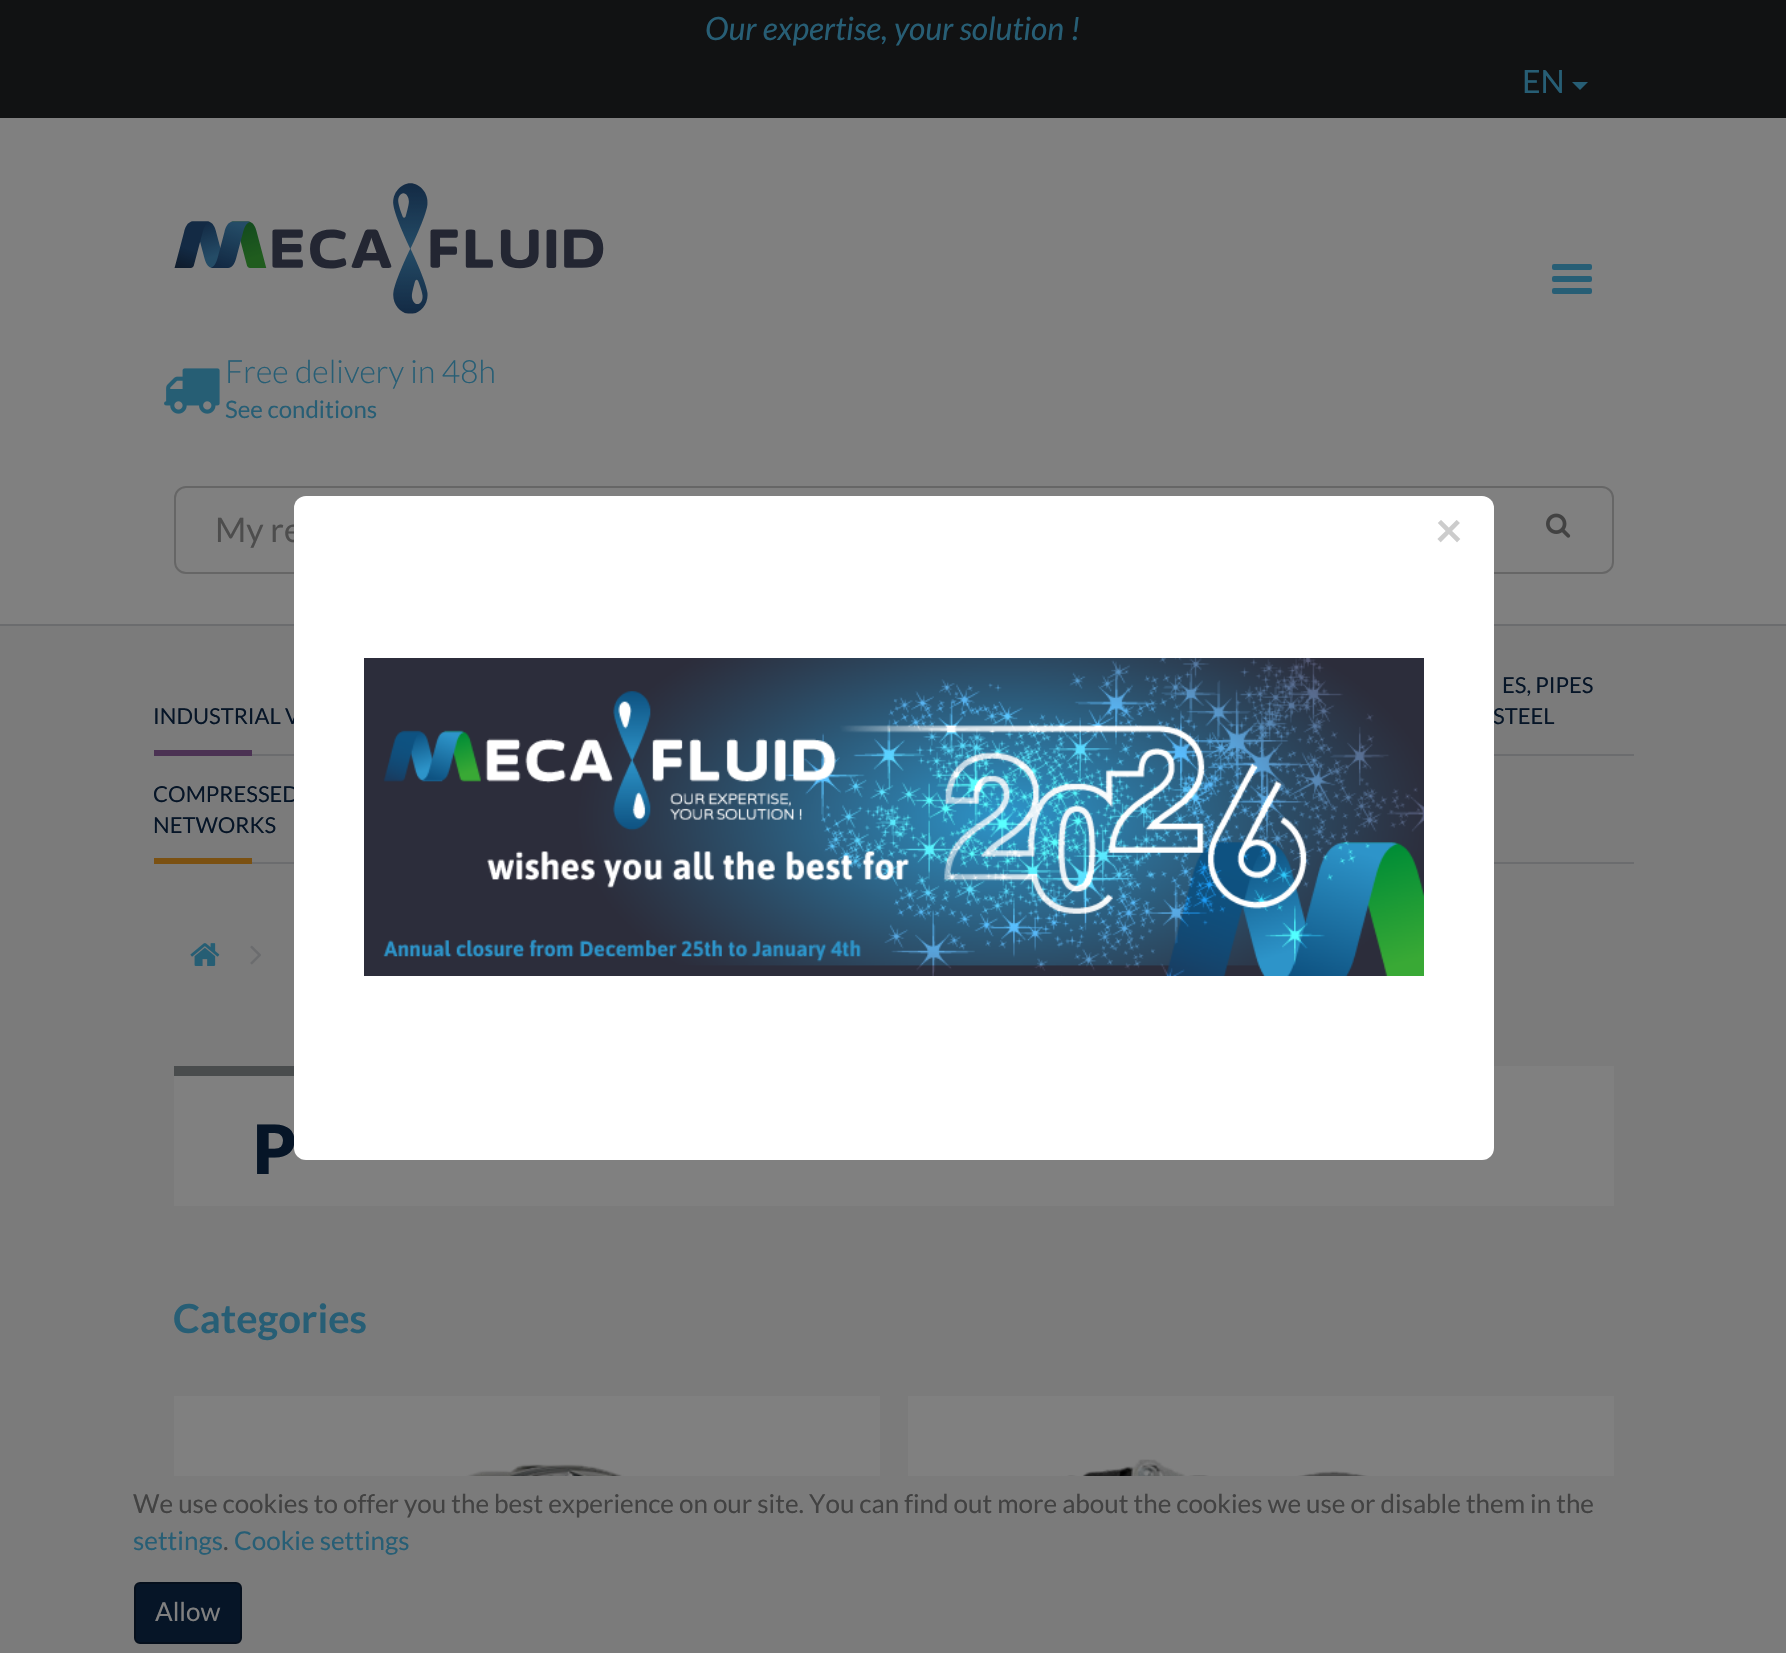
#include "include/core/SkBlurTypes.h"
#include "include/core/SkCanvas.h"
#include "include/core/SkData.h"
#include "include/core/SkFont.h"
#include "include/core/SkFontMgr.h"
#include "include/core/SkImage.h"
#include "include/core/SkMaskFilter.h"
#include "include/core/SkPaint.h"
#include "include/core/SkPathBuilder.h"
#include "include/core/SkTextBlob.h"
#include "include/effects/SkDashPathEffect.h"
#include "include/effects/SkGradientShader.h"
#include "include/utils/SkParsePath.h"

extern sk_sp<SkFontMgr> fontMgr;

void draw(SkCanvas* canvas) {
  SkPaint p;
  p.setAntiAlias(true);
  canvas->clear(SkColorSetRGB(128, 128, 128));
  p.setColor(SkColorSetRGB(17, 18, 19));
  canvas->drawRect(SkRect::MakeLTRB(0, 0, 1786, 118), p);
  p.setColor(SkColorSetRGB(39, 94, 117));
  canvas->drawPath(SkPathBuilder().moveTo(1572, 82).lineTo(1588, 82).lineTo(1580, 90).close().detach(), p);
  p.setColor(SkColorSetRGB(107, 108, 110));
  canvas->drawRect(SkRect::MakeLTRB(0, 624, 1786, 626), p);
  p.setColor(SkColorSetRGB(39, 94, 117));
  canvas->drawRoundRect(SkRect::MakeLTRB(1552, 264, 1592, 270), 2, 2, p);
  canvas->drawRoundRect(SkRect::MakeLTRB(1552, 276, 1592, 282), 2, 2, p);
  canvas->drawRoundRect(SkRect::MakeLTRB(1552, 288, 1592, 294), 2, 2, p);
  canvas->drawImageRect(SkImages::DeferredFromEncodedData(SkData::MakeFromFileName("images/1.png")), SkRect::MakeLTRB(174, 183, 604, 314), SkSamplingOptions());
  canvas->drawImageRect(SkImages::DeferredFromEncodedData(SkData::MakeFromFileName("images/2.png")), SkRect::MakeLTRB(164, 368, 220, 414), SkSamplingOptions());
  p.setStyle(SkPaint::kStroke_Style);
  p.setStrokeWidth(2);
  p.setColor(SkColorSetRGB(102, 102, 102));
  canvas->drawRoundRect(SkRect::MakeLTRB(175, 487, 1613, 573), 11, 11, p);
  canvas->drawImageRect(SkImages::DeferredFromEncodedData(SkData::MakeFromFileName("images/3.png")), SkRect::MakeLTRB(1546, 513, 1571, 538), SkSamplingOptions());
  p.setStyle(SkPaint::kFill_Style);
  p.setColor(SkColorSetRGB(123, 123, 123));
  canvas->drawRect(SkRect::MakeLTRB(0, 626, 1786, 1653), p);
  p.setColor(SkColorSetRGB(75, 50, 83));
  canvas->drawRect(SkRect::MakeLTRB(154, 750, 252, 756), p);
  p.setColor(SkColorSetRGB(107, 108, 110));
  canvas->drawRect(SkRect::MakeLTRB(252, 754, 294, 756), p);
  canvas->drawRect(SkRect::MakeLTRB(1494, 754, 1634, 756), p);
  p.setColor(SkColorSetRGB(123, 81, 18));
  canvas->drawRect(SkRect::MakeLTRB(154, 858, 252, 864), p);
  p.setColor(SkColorSetRGB(107, 108, 110));
  canvas->drawRect(SkRect::MakeLTRB(252, 862, 294, 864), p);
  canvas->drawRect(SkRect::MakeLTRB(1494, 862, 1634, 864), p);
  canvas->drawImageRect(SkImages::DeferredFromEncodedData(SkData::MakeFromFileName("images/5.png")), SkRect::MakeLTRB(190, 943, 220, 966), SkSamplingOptions());
  canvas->drawImageRect(SkImages::DeferredFromEncodedData(SkData::MakeFromFileName("images/6.png")), SkRect::MakeLTRB(250, 945, 261, 965), SkSamplingOptions());
  p.setColor(SkColorSetRGB(128, 128, 128));
  canvas->drawRect(SkRect::MakeLTRB(174, 1066, 1614, 1206), p);
  p.setColor(SkColorSetRGB(73, 76, 77));
  canvas->drawRect(SkRect::MakeLTRB(174, 1066, 294, 1076), p);
  p.setColor(SkColorSetRGB(128, 128, 128));
  canvas->drawRect(SkRect::MakeLTRB(174, 1396, 880, 1476), p);
  canvas->drawImageRect(SkImages::DeferredFromEncodedData(SkData::MakeFromFileName("images/7.png")), SkRect::MakeLTRB(462, 1464, 627, 1476), SkSamplingOptions());
  canvas->drawRect(SkRect::MakeLTRB(908, 1396, 1614, 1476), p);
  canvas->drawImageRect(SkImages::DeferredFromEncodedData(SkData::MakeFromFileName("images/8.png")), SkRect::MakeLTRB(1061, 1459, 1372, 1476), SkSamplingOptions());
  p.setColor(SkColorSetRGB(6, 21, 39));
  canvas->drawRoundRect(SkRect::MakeLTRB(135, 1583, 241, 1643), 5, 5, p);
  p.setStyle(SkPaint::kStroke_Style);
  p.setColor(SkColorSetRGB(5, 15, 28));
  canvas->drawRoundRect(SkRect::MakeLTRB(135, 1583, 241, 1643), 5, 5, p);
  SkFont font1(fontMgr->matchFamilyStyle("Lato", SkFontStyle::Italic()), 32);
  font1.setSubpixel(true);
  p.setStyle(SkPaint::kFill_Style);
  p.setColor(SkColorSetRGB(39, 94, 117));
  canvas->drawString("Our expertise, your solution !", 705, 40, font1, p);
  SkFont font2(fontMgr->matchFamilyStyle("Lato", SkFontStyle::Normal()), 32);
  font2.setSubpixel(true);
  canvas->drawString("EN", 1522, 93, font2, p);
  SkFont font3(fontMgr->matchFamilyStyle("Lato", SkFontStyle(300, SkFontStyle::kNormal_Width, SkFontStyle::kUpright_Slant)), 32);
  font3.setSubpixel(true);
  canvas->drawString("Free delivery in 48h", 225, 383, font3, p);
  SkFont font4(fontMgr->matchFamilyStyle("Lato", SkFontStyle::Normal()), 24);
  font4.setSubpixel(true);
  canvas->drawString("See conditions", 225, 418, font4, p);
  SkFont font5(fontMgr->matchFamilyStyle("Lato", SkFontStyle::Normal()), 34);
  font5.setSubpixel(true);
  p.setColor(SkColorSetRGB(77, 77, 77));
  canvas->drawString("My re", 215, 542, font5, p);
  SkFont font6(fontMgr->matchFamilyStyle("Lato", SkFontStyle::Normal()), 22);
  font6.setSubpixel(true);
  p.setColor(SkColorSetRGB(6, 21, 39));
  canvas->drawString("INDUSTRIAL V", 153, 724, font6, p);
  canvas->drawString("ES, PIPES", 1502, 693, font6, p);
  canvas->drawString("STEEL", 1493, 724, font6, p);
  canvas->drawString("COMPRESSED", 153, 802, font6, p);
  canvas->drawString("NETWORKS", 153, 833, font6, p);
  SkFont font7(fontMgr->matchFamilyStyle("Lato", SkFontStyle(900, SkFontStyle::kNormal_Width, SkFontStyle::kUpright_Slant)), 68);
  font7.setSubpixel(true);
  canvas->drawString("P", 253, 1174, font7, p);
  p.setColor(SK_ColorWHITE);
  canvas->drawRoundRect(SkRect::MakeLTRB(294, 496, 1494, 1160), 12, 12, p);
  SkFont font8(fontMgr->matchFamilyStyle("Lato", SkFontStyle::Bold()), 48);
  font8.setSubpixel(true);
  p.setColor(SkColorSetRGB(204, 204, 204));
  canvas->drawString("×", 1435, 547, font8, p);
  canvas->drawImageRect(SkImages::DeferredFromEncodedData(SkData::MakeFromFileName("images/4.png")), SkRect::MakeLTRB(364, 658, 1424, 976), SkSamplingOptions());
  SkFont font9(fontMgr->matchFamilyStyle("Lato", SkFontStyle::Bold()), 40);
  font9.setSubpixel(true);
  p.setColor(SkColorSetRGB(39, 94, 117));
  canvas->drawString("Categories", 173, 1333, font9, p);
  SkFont font10(fontMgr->matchFamilyStyle("Lato", SkFontStyle::Normal()), 26);
  font10.setSubpixel(true);
  p.setColor(SkColorSetRGB(66, 66, 66));
  canvas->drawString("We use cookies to offer you the best experience on our site. You can find out more about the cookies we use or disable them in the", 133, 1513, font10, p);
  p.setColor(SkColorSetRGB(39, 94, 117));
  canvas->drawString("settings", 133, 1550, font10, p);
  p.setColor(SkColorSetRGB(66, 66, 66));
  canvas->drawString(".", 223, 1550, font10, p);
  p.setColor(SkColorSetRGB(39, 94, 117));
  canvas->drawString("Cookie settings", 234, 1550, font10, p);
  p.setColor(SkColorSetRGB(128, 128, 128));
  canvas->drawString("Allow", 155, 1621, font10, p);
}
